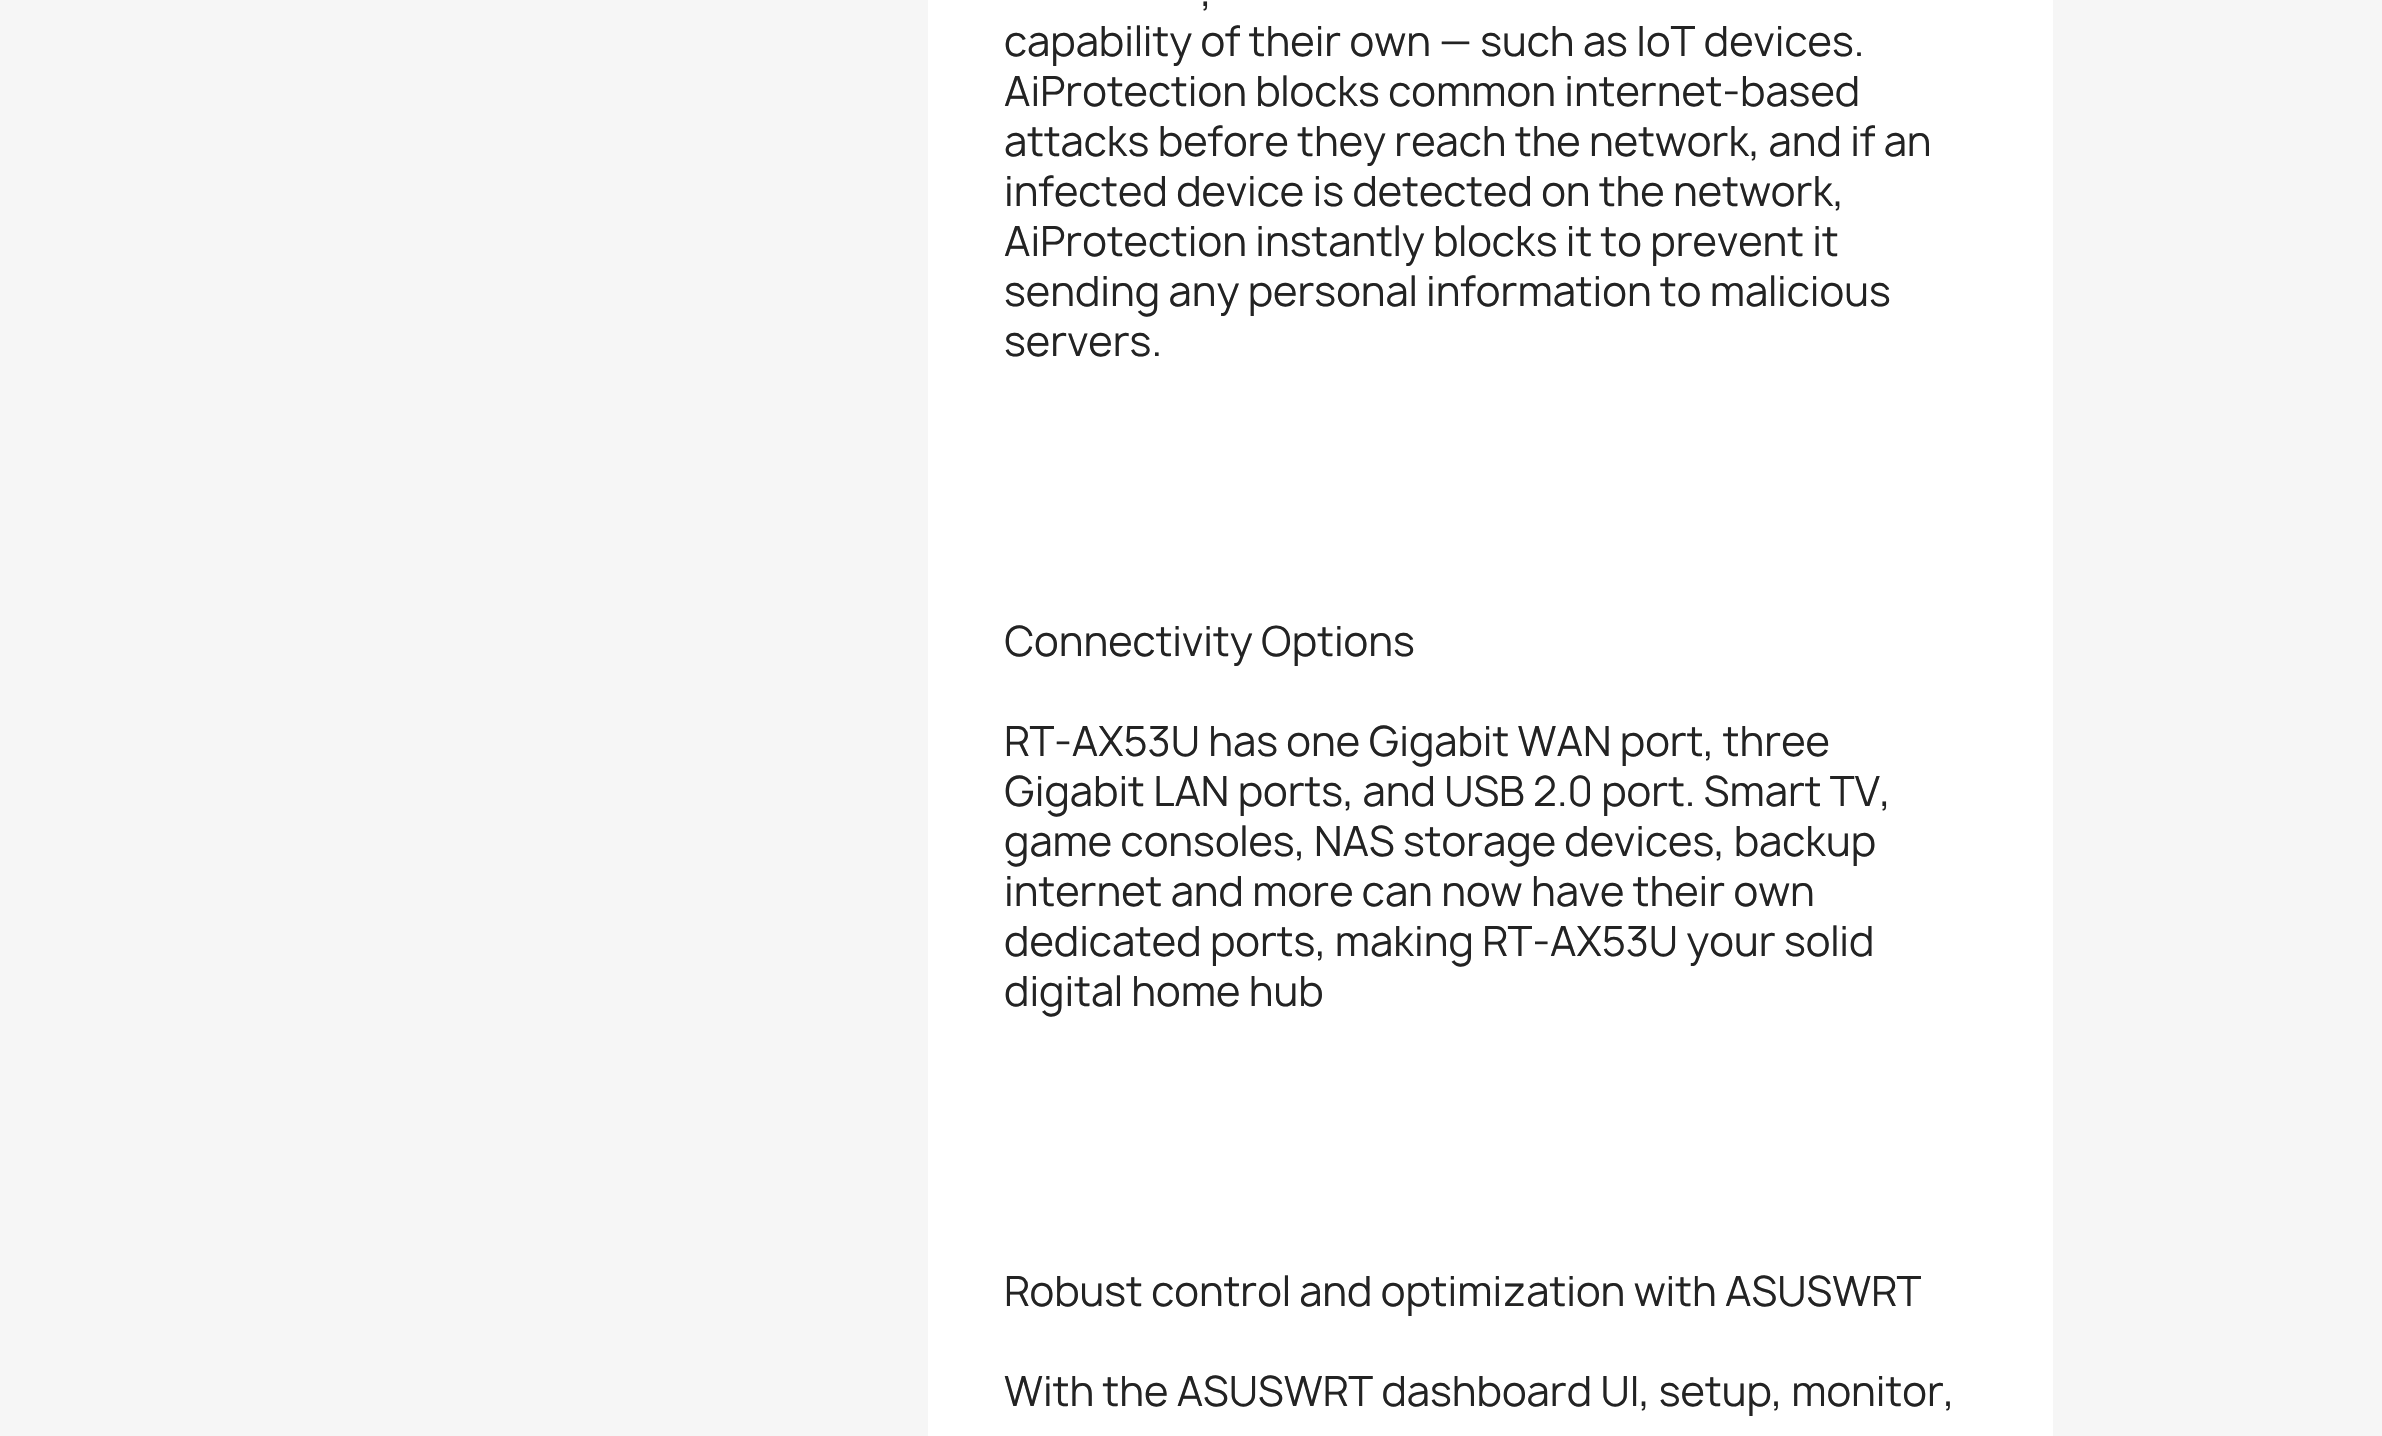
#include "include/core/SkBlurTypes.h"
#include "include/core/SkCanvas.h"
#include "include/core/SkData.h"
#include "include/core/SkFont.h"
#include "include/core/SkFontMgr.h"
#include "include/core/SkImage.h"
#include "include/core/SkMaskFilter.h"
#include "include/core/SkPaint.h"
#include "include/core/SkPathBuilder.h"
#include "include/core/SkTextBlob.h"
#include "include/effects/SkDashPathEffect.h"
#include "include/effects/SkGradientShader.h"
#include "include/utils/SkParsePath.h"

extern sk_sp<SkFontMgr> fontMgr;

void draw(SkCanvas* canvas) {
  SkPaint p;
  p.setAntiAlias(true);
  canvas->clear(SkColorSetRGB(246, 246, 246));
  p.setColor(SK_ColorWHITE);
  canvas->drawRect(SkRect::MakeLTRB(928, 0, 2053, 1436), p);
  SkFont font1(fontMgr->matchFamilyStyle("Manrope", SkFontStyle::Normal()), 40);
  font1.setSubpixel(true);
  p.setColor(SkColorSetRGB(35, 35, 35));
  canvas->drawString(",", 1201, 6, font1, p);
  canvas->drawString("capability of their own — such as IoT devices.", 1004, 56, font1, p);
  canvas->drawString("AiProtection blocks common internet-based", 1004, 106, font1, p);
  canvas->drawString("attacks before they reach the network, and if an", 1004, 156, font1, p);
  canvas->drawString("infected device is detected on the network,", 1004, 206, font1, p);
  canvas->drawString("AiProtection instantly blocks it to prevent it", 1004, 256, font1, p);
  canvas->drawString("sending any personal information to malicious", 1004, 306, font1, p);
  canvas->drawString("servers.", 1004, 356, font1, p);
  canvas->drawString("Connectivity Options", 1004, 656, font1, p);
  canvas->drawString("RT-AX53U has one Gigabit WAN port, three", 1004, 756, font1, p);
  canvas->drawString("Gigabit LAN ports, and USB 2.0 port. Smart TV,", 1004, 806, font1, p);
  canvas->drawString("game consoles, NAS storage devices, backup", 1004, 856, font1, p);
  canvas->drawString("internet and more can now have their own", 1004, 906, font1, p);
  canvas->drawString("dedicated ports, making RT-AX53U your solid", 1004, 956, font1, p);
  canvas->drawString("digital home hub", 1004, 1006, font1, p);
  canvas->drawString("Robust control and optimization with ASUSWRT", 1004, 1306, font1, p);
  canvas->drawString("With the ASUSWRT dashboard UI, setup, monitor,", 1004, 1406, font1, p);
}
